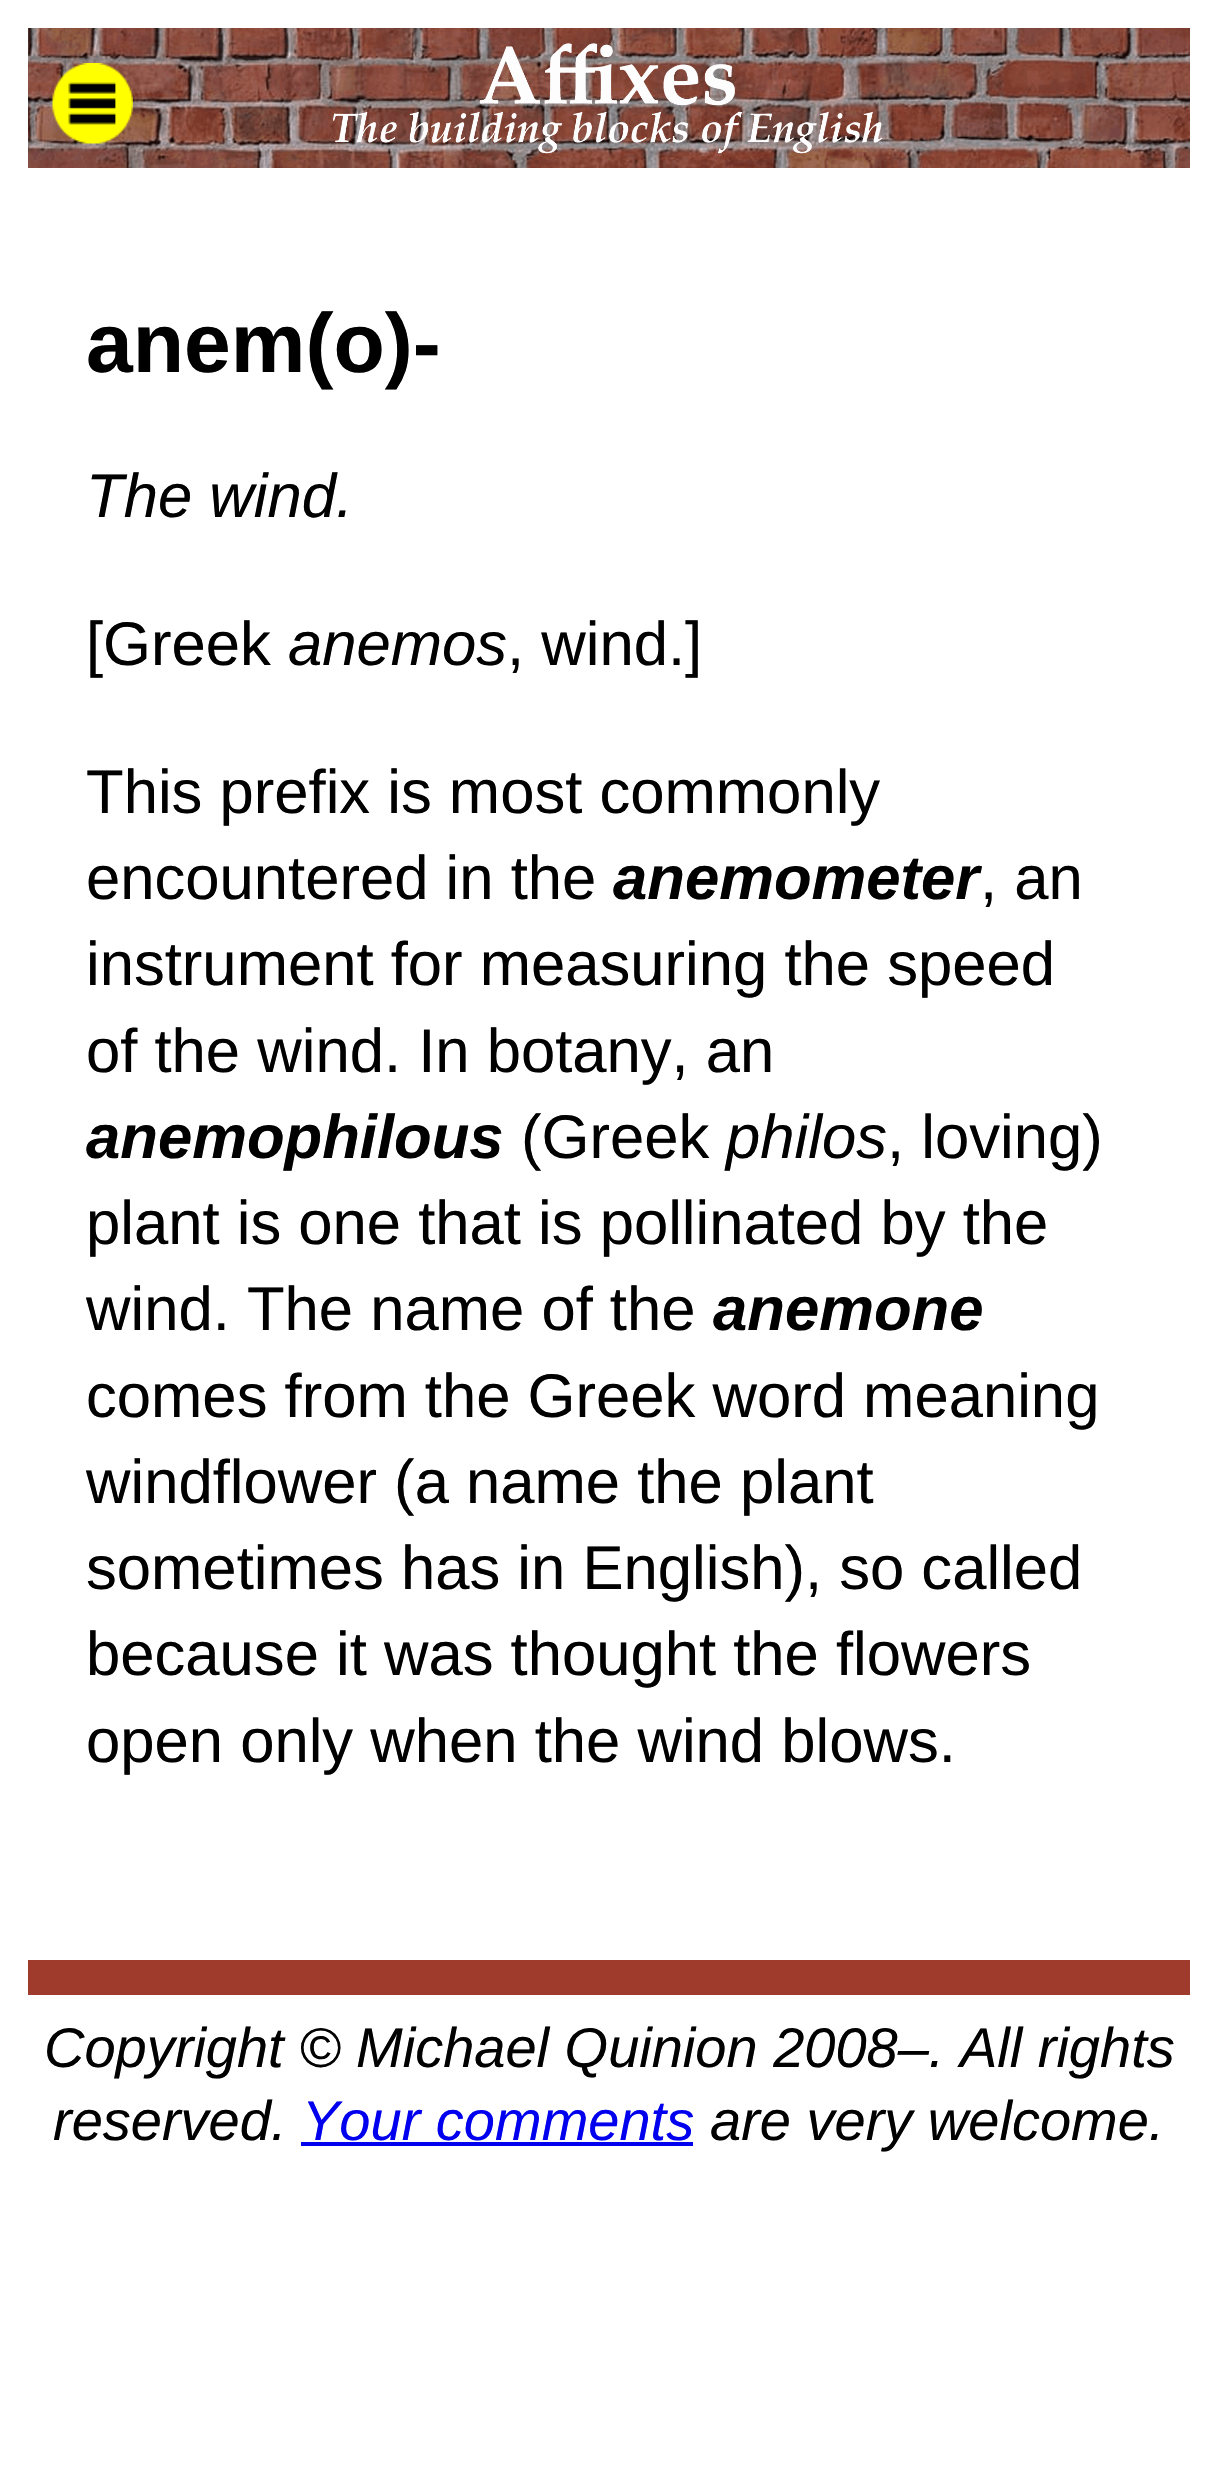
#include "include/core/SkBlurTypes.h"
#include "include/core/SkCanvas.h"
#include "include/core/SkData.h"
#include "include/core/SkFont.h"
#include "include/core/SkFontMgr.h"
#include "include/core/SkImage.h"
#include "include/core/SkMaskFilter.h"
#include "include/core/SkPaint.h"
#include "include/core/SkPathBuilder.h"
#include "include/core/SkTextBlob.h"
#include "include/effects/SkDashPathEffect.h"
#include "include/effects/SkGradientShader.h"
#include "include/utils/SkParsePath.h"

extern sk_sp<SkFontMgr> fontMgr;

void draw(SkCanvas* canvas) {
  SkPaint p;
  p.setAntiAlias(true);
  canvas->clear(SK_ColorWHITE);
  canvas->drawImageRect(SkImages::DeferredFromEncodedData(SkData::MakeFromFileName("images/1.png")), SkRect::MakeLTRB(28, 28, 1190, 168), SkSamplingOptions());
  canvas->drawImageRect(SkImages::DeferredFromEncodedData(SkData::MakeFromFileName("images/2.png")), SkRect::MakeLTRB(52, 63, 133, 144), SkSamplingOptions());
  p.setColor(SkColorSetRGB(158, 59, 45));
  canvas->drawRect(SkRect::MakeLTRB(28, 1960, 1190, 1995), p);
  p.setColor(SkColorSetRGB(0, 0, 238));
  canvas->drawRect(SkRect::MakeLTRB(301, 2142, 693, 2146), p);
  SkFont font1(fontMgr->matchFamilyStyle("Liberation Sans", SkFontStyle::Bold()), 84);
  font1.setSubpixel(true);
  p.setColor(SK_ColorBLACK);
  canvas->drawString("anem(o)-", 86, 372, font1, p);
  SkFont font2(fontMgr->matchFamilyStyle("Liberation Sans", SkFontStyle::Italic()), 61.6f);
  font2.setSubpixel(true);
  canvas->drawString("The wind.", 86, 517, font2, p);
  SkFont font3(fontMgr->matchFamilyStyle("Liberation Sans", SkFontStyle::Normal()), 61.6f);
  font3.setSubpixel(true);
  canvas->drawString("[Greek", 86, 665, font3, p);
  canvas->drawString("anemos", 288, 665, font2, p);
  canvas->drawString(", wind.]", 507, 665, font3, p);
  canvas->drawString("This prefix is most commonly", 86, 813, font3, p);
  canvas->drawString("encountered in the", 86, 899, font3, p);
  SkFont font4(fontMgr->matchFamilyStyle("Liberation Sans", SkFontStyle::BoldItalic()), 61.6f);
  font4.setSubpixel(true);
  canvas->drawString("anemometer", 613, 899, font4, p);
  canvas->drawString(", an", 980, 899, font3, p);
  canvas->drawString("instrument for measuring the speed", 86, 985, font3, p);
  canvas->drawString("of the wind. In botany, an", 86, 1072, font3, p);
  canvas->drawString("anemophilous", 86, 1158, font4, p);
  canvas->drawString("(Greek", 521, 1158, font3, p);
  canvas->drawString("philos", 726, 1158, font2, p);
  canvas->drawString(", loving)", 887, 1158, font3, p);
  canvas->drawString("plant is one that is pollinated by the", 86, 1244, font3, p);
  canvas->drawString("wind. The name of the", 86, 1330, font3, p);
  canvas->drawString("anemone", 713, 1330, font4, p);
  canvas->drawString("comes from the Greek word meaning", 86, 1417, font3, p);
  canvas->drawString("windflower (a name the plant", 86, 1503, font3, p);
  canvas->drawString("sometimes has in English), so called", 86, 1589, font3, p);
  canvas->drawString("because it was thought the flowers", 86, 1675, font3, p);
  canvas->drawString("open only when the wind blows.", 86, 1762, font3, p);
  SkFont font5(fontMgr->matchFamilyStyle("Liberation Sans", SkFontStyle::Italic()), 56);
  font5.setSubpixel(true);
  canvas->drawString("Copyright © Michael Quinion 2008–. All rights", 44, 2067, font5, p);
  canvas->drawString("reserved.", 53, 2140, font5, p);
  p.setColor(SkColorSetRGB(0, 0, 238));
  canvas->drawString("Your comments", 302, 2140, font5, p);
  p.setColor(SK_ColorBLACK);
  canvas->drawString("are very welcome.", 710, 2140, font5, p);
}
